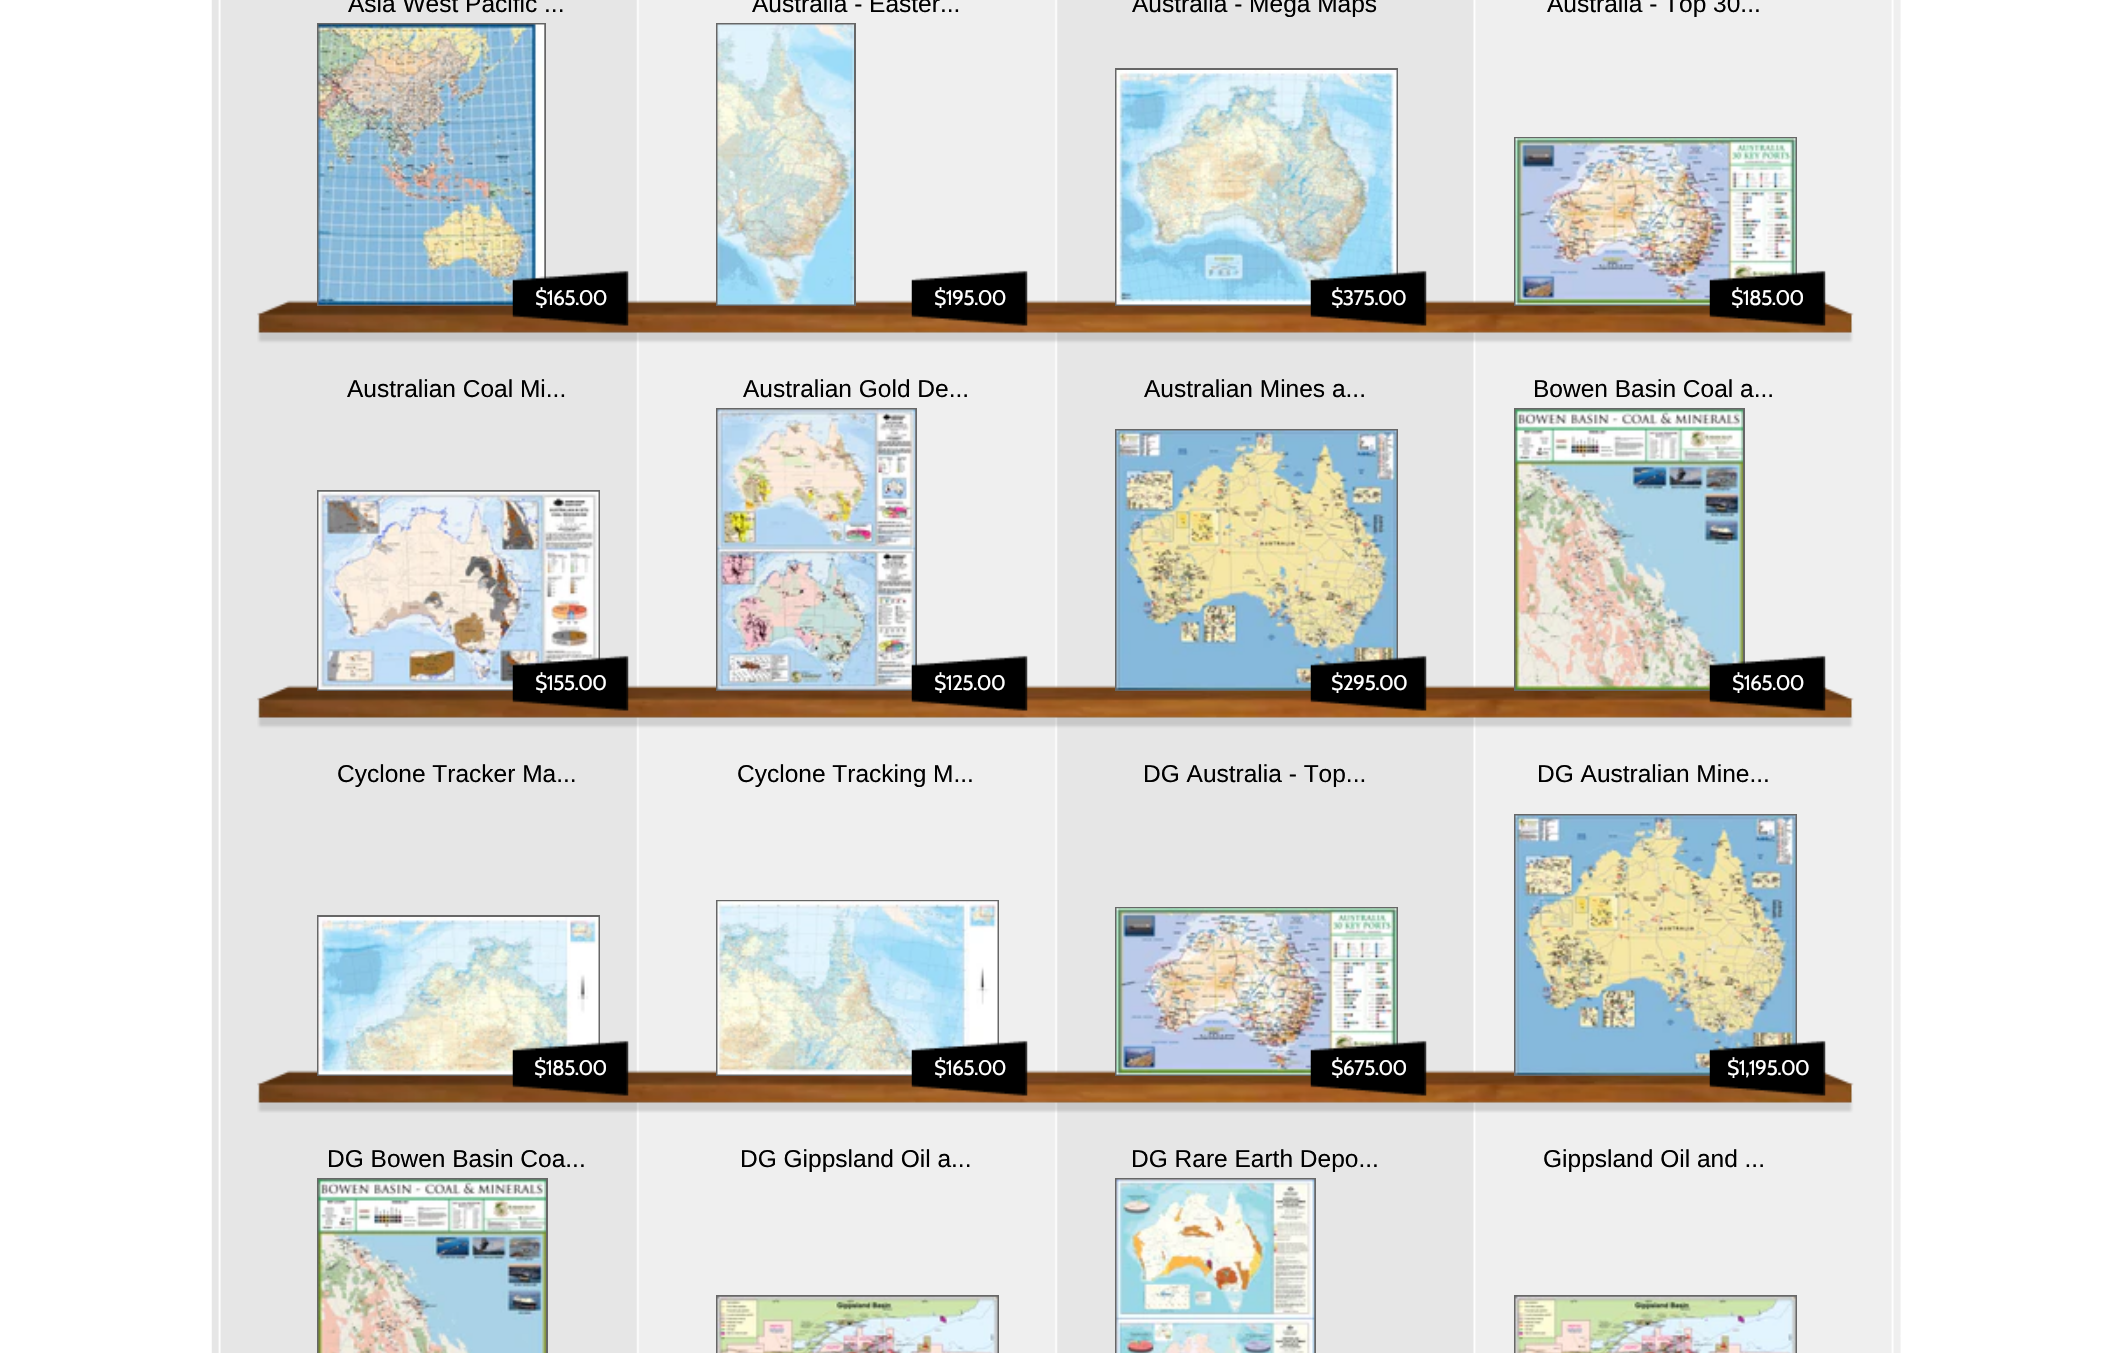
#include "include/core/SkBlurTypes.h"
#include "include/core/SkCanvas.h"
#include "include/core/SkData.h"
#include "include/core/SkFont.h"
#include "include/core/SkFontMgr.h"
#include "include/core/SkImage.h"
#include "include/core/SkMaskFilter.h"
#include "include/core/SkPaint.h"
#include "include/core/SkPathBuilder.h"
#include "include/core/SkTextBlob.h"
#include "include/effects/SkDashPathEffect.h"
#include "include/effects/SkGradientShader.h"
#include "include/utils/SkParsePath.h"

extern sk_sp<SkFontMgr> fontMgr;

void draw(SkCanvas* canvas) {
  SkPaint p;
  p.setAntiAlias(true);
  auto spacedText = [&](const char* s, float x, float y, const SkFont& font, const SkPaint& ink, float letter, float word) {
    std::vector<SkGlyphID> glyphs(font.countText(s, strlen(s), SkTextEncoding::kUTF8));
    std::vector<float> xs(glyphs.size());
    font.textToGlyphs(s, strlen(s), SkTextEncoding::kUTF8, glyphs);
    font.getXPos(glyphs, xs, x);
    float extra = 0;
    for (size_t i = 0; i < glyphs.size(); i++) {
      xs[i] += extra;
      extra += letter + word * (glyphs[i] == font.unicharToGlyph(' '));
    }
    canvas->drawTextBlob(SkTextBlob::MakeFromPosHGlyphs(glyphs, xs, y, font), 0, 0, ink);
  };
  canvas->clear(SK_ColorWHITE);
  canvas->drawImageRect(SkImages::DeferredFromEncodedData(SkData::MakeFromFileName("images/1.png")), SkRect::MakeLTRB(211, 0, 1901, 1353), SkSamplingOptions());
  canvas->drawImageRect(SkImages::DeferredFromEncodedData(SkData::MakeFromFileName("images/2.png")), SkRect::MakeLTRB(257, 300, 1854, 1113), SkSamplingOptions());
  p.setStyle(SkPaint::kStroke_Style);
  p.setStrokeWidth(2);
  p.setColor(SkColorSetRGB(102, 102, 102));
  canvas->drawRect(SkRect::MakeLTRB(318, 24, 545, 305), p);
  canvas->drawImageRect(SkImages::DeferredFromEncodedData(SkData::MakeFromFileName("images/3.png")), SkRect::MakeLTRB(318, 24, 545, 305), SkSamplingOptions());
  canvas->drawImageRect(SkImages::DeferredFromEncodedData(SkData::MakeFromFileName("images/4.png")), SkRect::MakeLTRB(512, 270, 629, 326), SkSamplingOptions());
  canvas->drawRect(SkRect::MakeLTRB(717, 24, 855, 305), p);
  canvas->drawImageRect(SkImages::DeferredFromEncodedData(SkData::MakeFromFileName("images/5.png")), SkRect::MakeLTRB(717, 24, 854, 305), SkSamplingOptions());
  canvas->drawImageRect(SkImages::DeferredFromEncodedData(SkData::MakeFromFileName("images/6.png")), SkRect::MakeLTRB(911, 270, 1028, 326), SkSamplingOptions());
  canvas->drawRect(SkRect::MakeLTRB(1116, 69, 1397, 305), p);
  canvas->drawImageRect(SkImages::DeferredFromEncodedData(SkData::MakeFromFileName("images/7.png")), SkRect::MakeLTRB(1116, 70, 1397, 305), SkSamplingOptions());
  canvas->drawImageRect(SkImages::DeferredFromEncodedData(SkData::MakeFromFileName("images/8.png")), SkRect::MakeLTRB(1310, 270, 1427, 326), SkSamplingOptions());
  canvas->drawRect(SkRect::MakeLTRB(1515, 138, 1796, 305), p);
  canvas->drawImageRect(SkImages::DeferredFromEncodedData(SkData::MakeFromFileName("images/9.png")), SkRect::MakeLTRB(1515, 138, 1796, 305), SkSamplingOptions());
  canvas->drawImageRect(SkImages::DeferredFromEncodedData(SkData::MakeFromFileName("images/10.png")), SkRect::MakeLTRB(1709, 270, 1826, 326), SkSamplingOptions());
  canvas->drawRect(SkRect::MakeLTRB(318, 491, 599, 690), p);
  canvas->drawImageRect(SkImages::DeferredFromEncodedData(SkData::MakeFromFileName("images/11.png")), SkRect::MakeLTRB(318, 491, 599, 690), SkSamplingOptions());
  canvas->drawImageRect(SkImages::DeferredFromEncodedData(SkData::MakeFromFileName("images/12.png")), SkRect::MakeLTRB(512, 655, 629, 711), SkSamplingOptions());
  canvas->drawRect(SkRect::MakeLTRB(717, 409, 916, 690), p);
  canvas->drawImageRect(SkImages::DeferredFromEncodedData(SkData::MakeFromFileName("images/13.png")), SkRect::MakeLTRB(717, 409, 916, 690), SkSamplingOptions());
  canvas->drawImageRect(SkImages::DeferredFromEncodedData(SkData::MakeFromFileName("images/14.png")), SkRect::MakeLTRB(911, 655, 1028, 711), SkSamplingOptions());
  canvas->drawRect(SkRect::MakeLTRB(1116, 430, 1397, 690), p);
  canvas->drawImageRect(SkImages::DeferredFromEncodedData(SkData::MakeFromFileName("images/15.png")), SkRect::MakeLTRB(1116, 430, 1397, 690), SkSamplingOptions());
  canvas->drawImageRect(SkImages::DeferredFromEncodedData(SkData::MakeFromFileName("images/16.png")), SkRect::MakeLTRB(1310, 655, 1427, 711), SkSamplingOptions());
  canvas->drawRect(SkRect::MakeLTRB(1515, 409, 1744, 690), p);
  canvas->drawImageRect(SkImages::DeferredFromEncodedData(SkData::MakeFromFileName("images/17.png")), SkRect::MakeLTRB(1515, 409, 1743, 690), SkSamplingOptions());
  canvas->drawImageRect(SkImages::DeferredFromEncodedData(SkData::MakeFromFileName("images/18.png")), SkRect::MakeLTRB(1709, 655, 1826, 711), SkSamplingOptions());
  canvas->drawRect(SkRect::MakeLTRB(318, 916, 599, 1075), p);
  canvas->drawImageRect(SkImages::DeferredFromEncodedData(SkData::MakeFromFileName("images/19.png")), SkRect::MakeLTRB(318, 917, 599, 1075), SkSamplingOptions());
  canvas->drawImageRect(SkImages::DeferredFromEncodedData(SkData::MakeFromFileName("images/20.png")), SkRect::MakeLTRB(512, 1040, 629, 1096), SkSamplingOptions());
  canvas->drawRect(SkRect::MakeLTRB(717, 901, 998, 1075), p);
  canvas->drawImageRect(SkImages::DeferredFromEncodedData(SkData::MakeFromFileName("images/21.png")), SkRect::MakeLTRB(717, 901, 998, 1075), SkSamplingOptions());
  canvas->drawImageRect(SkImages::DeferredFromEncodedData(SkData::MakeFromFileName("images/22.png")), SkRect::MakeLTRB(911, 1040, 1028, 1096), SkSamplingOptions());
  canvas->drawRect(SkRect::MakeLTRB(1116, 908, 1397, 1075), p);
  canvas->drawImageRect(SkImages::DeferredFromEncodedData(SkData::MakeFromFileName("images/23.png")), SkRect::MakeLTRB(1116, 908, 1397, 1075), SkSamplingOptions());
  canvas->drawImageRect(SkImages::DeferredFromEncodedData(SkData::MakeFromFileName("images/24.png")), SkRect::MakeLTRB(1310, 1040, 1427, 1096), SkSamplingOptions());
  canvas->drawRect(SkRect::MakeLTRB(1515, 815, 1796, 1075), p);
  canvas->drawImageRect(SkImages::DeferredFromEncodedData(SkData::MakeFromFileName("images/25.png")), SkRect::MakeLTRB(1515, 815, 1796, 1075), SkSamplingOptions());
  canvas->drawImageRect(SkImages::DeferredFromEncodedData(SkData::MakeFromFileName("images/26.png")), SkRect::MakeLTRB(1709, 1040, 1826, 1096), SkSamplingOptions());
  canvas->drawRect(SkRect::MakeLTRB(318, 1179, 547, 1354), p);
  canvas->drawImageRect(SkImages::DeferredFromEncodedData(SkData::MakeFromFileName("images/27.png")), SkRect::MakeLTRB(318, 1179, 546, 1353), SkSamplingOptions());
  canvas->drawRect(SkRect::MakeLTRB(717, 1296, 998, 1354), p);
  canvas->drawImageRect(SkImages::DeferredFromEncodedData(SkData::MakeFromFileName("images/28.png")), SkRect::MakeLTRB(717, 1296, 998, 1353), SkSamplingOptions());
  canvas->drawRect(SkRect::MakeLTRB(1116, 1179, 1315, 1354), p);
  canvas->drawImageRect(SkImages::DeferredFromEncodedData(SkData::MakeFromFileName("images/29.png")), SkRect::MakeLTRB(1116, 1179, 1315, 1353), SkSamplingOptions());
  canvas->drawRect(SkRect::MakeLTRB(1515, 1296, 1796, 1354), p);
  canvas->drawImageRect(SkImages::DeferredFromEncodedData(SkData::MakeFromFileName("images/30.png")), SkRect::MakeLTRB(1515, 1296, 1796, 1353), SkSamplingOptions());
  SkFont font1(fontMgr->matchFamilyStyle("Liberation Sans", SkFontStyle::Normal()), 24.5f);
  font1.setSubpixel(true);
  p.setStyle(SkPaint::kFill_Style);
  p.setColor(SK_ColorBLACK);
  canvas->drawString("Asia West Pacific ...", 348, 12, font1, p);
  SkFont font2(fontMgr->matchFamilyStyle("Cabin", SkFontStyle::Normal()), 21);
  font2.setSubpixel(true);
  p.setColor(SK_ColorWHITE);
  spacedText("$165.00", 535, 305, font2, p, -0.6f, 0);
  p.setColor(SK_ColorBLACK);
  canvas->drawString("Australia - Easter...", 752, 12, font1, p);
  p.setColor(SK_ColorWHITE);
  spacedText("$195.00", 934, 305, font2, p, -0.6f, 0);
  p.setColor(SK_ColorBLACK);
  canvas->drawString("Australia - Mega Maps", 1132, 12, font1, p);
  p.setColor(SK_ColorWHITE);
  spacedText("$375.00", 1331, 305, font2, p, -0.6f, 0);
  p.setColor(SK_ColorBLACK);
  canvas->drawString("Australia - Top 30...", 1547, 12, font1, p);
  p.setColor(SK_ColorWHITE);
  spacedText("$185.00", 1731, 305, font2, p, -0.6f, 0);
  p.setColor(SK_ColorBLACK);
  canvas->drawString("Australian Coal Mi...", 347, 397, font1, p);
  p.setColor(SK_ColorWHITE);
  spacedText("$155.00", 535, 690, font2, p, -0.6f, 0);
  p.setColor(SK_ColorBLACK);
  canvas->drawString("Australian Gold De...", 743, 397, font1, p);
  p.setColor(SK_ColorWHITE);
  spacedText("$125.00", 934, 690, font2, p, -0.6f, 0);
  p.setColor(SK_ColorBLACK);
  canvas->drawString("Australian Mines a...", 1144, 397, font1, p);
  p.setColor(SK_ColorWHITE);
  spacedText("$295.00", 1331, 690, font2, p, -0.6f, 0);
  p.setColor(SK_ColorBLACK);
  canvas->drawString("Bowen Basin Coal a...", 1533, 397, font1, p);
  p.setColor(SK_ColorWHITE);
  spacedText("$165.00", 1732, 690, font2, p, -0.6f, 0);
  p.setColor(SK_ColorBLACK);
  canvas->drawString("Cyclone Tracker Ma...", 337, 782, font1, p);
  p.setColor(SK_ColorWHITE);
  spacedText("$185.00", 534, 1075, font2, p, -0.6f, 0);
  p.setColor(SK_ColorBLACK);
  canvas->drawString("Cyclone Tracking M...", 737, 782, font1, p);
  p.setColor(SK_ColorWHITE);
  spacedText("$165.00", 934, 1075, font2, p, -0.6f, 0);
  p.setColor(SK_ColorBLACK);
  canvas->drawString("DG Australia - Top...", 1143, 782, font1, p);
  p.setColor(SK_ColorWHITE);
  spacedText("$675.00", 1331, 1075, font2, p, -0.6f, 0);
  p.setColor(SK_ColorBLACK);
  canvas->drawString("DG Australian Mine...", 1537, 782, font1, p);
  p.setColor(SK_ColorWHITE);
  spacedText("$1,195.00", 1727, 1075, font2, p, -0.6f, 0);
  p.setColor(SK_ColorBLACK);
  canvas->drawString("DG Bowen Basin Coa...", 327, 1167, font1, p);
  canvas->drawString("DG Gippsland Oil a...", 740, 1167, font1, p);
  canvas->drawString("DG Rare Earth Depo...", 1131, 1167, font1, p);
  canvas->drawString("Gippsland Oil and ...", 1543, 1167, font1, p);
}
